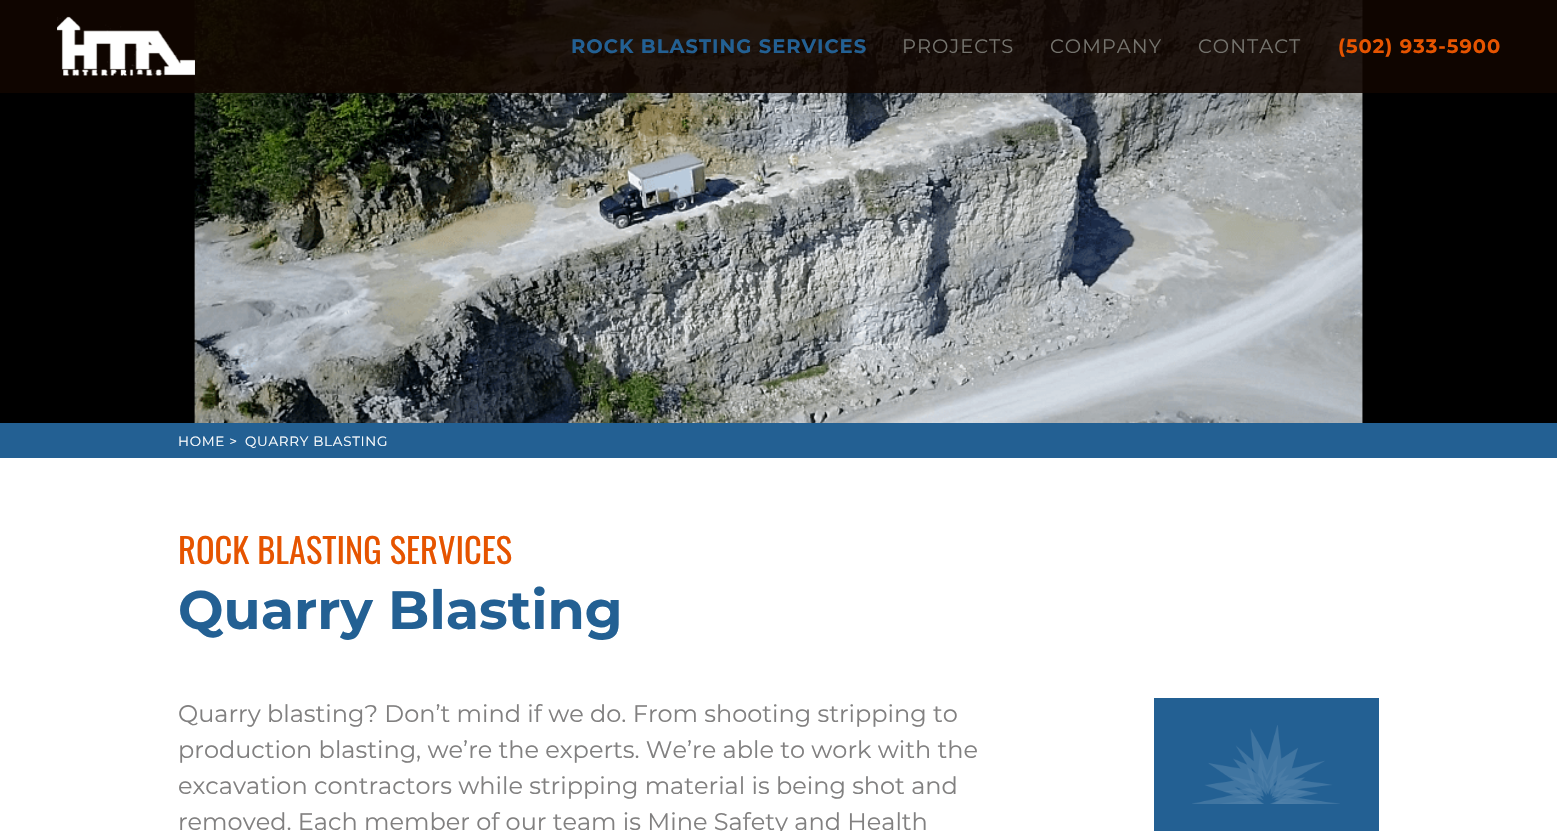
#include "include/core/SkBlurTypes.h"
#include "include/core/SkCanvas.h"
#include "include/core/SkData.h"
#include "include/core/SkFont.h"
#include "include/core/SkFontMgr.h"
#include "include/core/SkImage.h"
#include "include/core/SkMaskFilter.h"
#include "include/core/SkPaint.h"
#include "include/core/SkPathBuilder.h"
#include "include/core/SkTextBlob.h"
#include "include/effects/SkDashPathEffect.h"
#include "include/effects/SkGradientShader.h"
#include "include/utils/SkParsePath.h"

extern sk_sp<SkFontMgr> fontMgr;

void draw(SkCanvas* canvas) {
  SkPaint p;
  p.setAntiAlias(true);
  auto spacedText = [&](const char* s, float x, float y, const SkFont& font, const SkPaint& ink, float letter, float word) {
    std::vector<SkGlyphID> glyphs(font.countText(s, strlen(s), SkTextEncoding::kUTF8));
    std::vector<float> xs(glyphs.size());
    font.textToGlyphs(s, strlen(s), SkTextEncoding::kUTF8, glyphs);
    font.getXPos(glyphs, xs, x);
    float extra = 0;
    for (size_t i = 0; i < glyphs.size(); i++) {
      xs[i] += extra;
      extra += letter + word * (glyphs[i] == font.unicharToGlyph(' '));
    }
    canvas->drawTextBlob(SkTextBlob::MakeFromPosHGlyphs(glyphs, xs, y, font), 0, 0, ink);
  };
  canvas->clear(SK_ColorWHITE);
  canvas->drawImageRect(SkImages::DeferredFromEncodedData(SkData::MakeFromFileName("images/1.png")), SkRect::MakeLTRB(0, 0, 1557, 423), SkSamplingOptions());
  p.setColor(SkColorSetARGB(230, 17, 6, 0));
  canvas->drawRect(SkRect::MakeLTRB(0, 0, 1557, 93), p);
  canvas->drawImageRect(SkImages::DeferredFromEncodedData(SkData::MakeFromFileName("images/2.png")), SkRect::MakeLTRB(57, 16, 195, 76), SkSamplingOptions());
  p.setColor(SkColorSetRGB(35, 96, 147));
  canvas->drawRect(SkRect::MakeLTRB(0, 423, 1557, 458), p);
  canvas->drawRect(SkRect::MakeLTRB(1154, 698, 1379, 831), p);
  canvas->drawImageRect(SkImages::DeferredFromEncodedData(SkData::MakeFromFileName("images/3.png")), SkRect::MakeLTRB(1192, 725, 1340, 804), SkSamplingOptions());
  SkFont font1(fontMgr->matchFamilyStyle("Montserrat", SkFontStyle::Bold()), 19.5f);
  font1.setSubpixel(true);
  spacedText("ROCK BLASTING SERVICES", 571, 53, font1, p, 1, 0);
  SkFont font2(fontMgr->matchFamilyStyle("Montserrat", SkFontStyle::Normal()), 19.5f);
  font2.setSubpixel(true);
  p.setColor(SkColorSetRGB(116, 115, 109));
  spacedText("PROJECTS", 902, 53, font2, p, 1, 0);
  spacedText("COMPANY", 1050, 53, font2, p, 1, 0);
  spacedText("CONTACT", 1198, 53, font2, p, 1, 0);
  p.setColor(SkColorSetRGB(230, 84, 0));
  spacedText("(502) 933-5900", 1338, 53, font1, p, 1, 0);
  SkFont font3(fontMgr->matchFamilyStyle("Montserrat", SkFontStyle::Normal()), 13.5f);
  font3.setSubpixel(true);
  p.setColor(SK_ColorWHITE);
  spacedText("HOME >", 178, 446, font3, p, 0.7f, 0);
  spacedText("QUARRY BLASTING", 245, 446, font3, p, 0.7f, 0);
  SkFont font4(fontMgr->matchFamilyStyle("Oswald", SkFontStyle::Normal()), 34.5f);
  font4.setSubpixel(true);
  p.setColor(SkColorSetRGB(230, 84, 0));
  canvas->drawString("ROCK BLASTING SERVICES", 178, 564, font4, p);
  SkFont font5(fontMgr->matchFamilyStyle("Montserrat", SkFontStyle::Bold()), 54);
  font5.setSubpixel(true);
  p.setColor(SkColorSetRGB(35, 96, 147));
  canvas->drawString("Quarry Blasting", 178, 629, font5, p);
  SkFont font6(fontMgr->matchFamilyStyle("Montserrat", SkFontStyle::Normal()), 24);
  font6.setSubpixel(true);
  p.setColor(SkColorSetRGB(129, 128, 128));
  canvas->drawString("Quarry blasting? Don’t mind if we do. From shooting stripping to", 178, 722, font6, p);
  canvas->drawString("production blasting, we’re the experts. We’re able to work with the", 178, 758, font6, p);
  canvas->drawString("excavation contractors while stripping material is being shot and", 178, 794, font6, p);
  canvas->drawString("removed. Each member of our team is Mine Safety and Health", 178, 830, font6, p);
}
